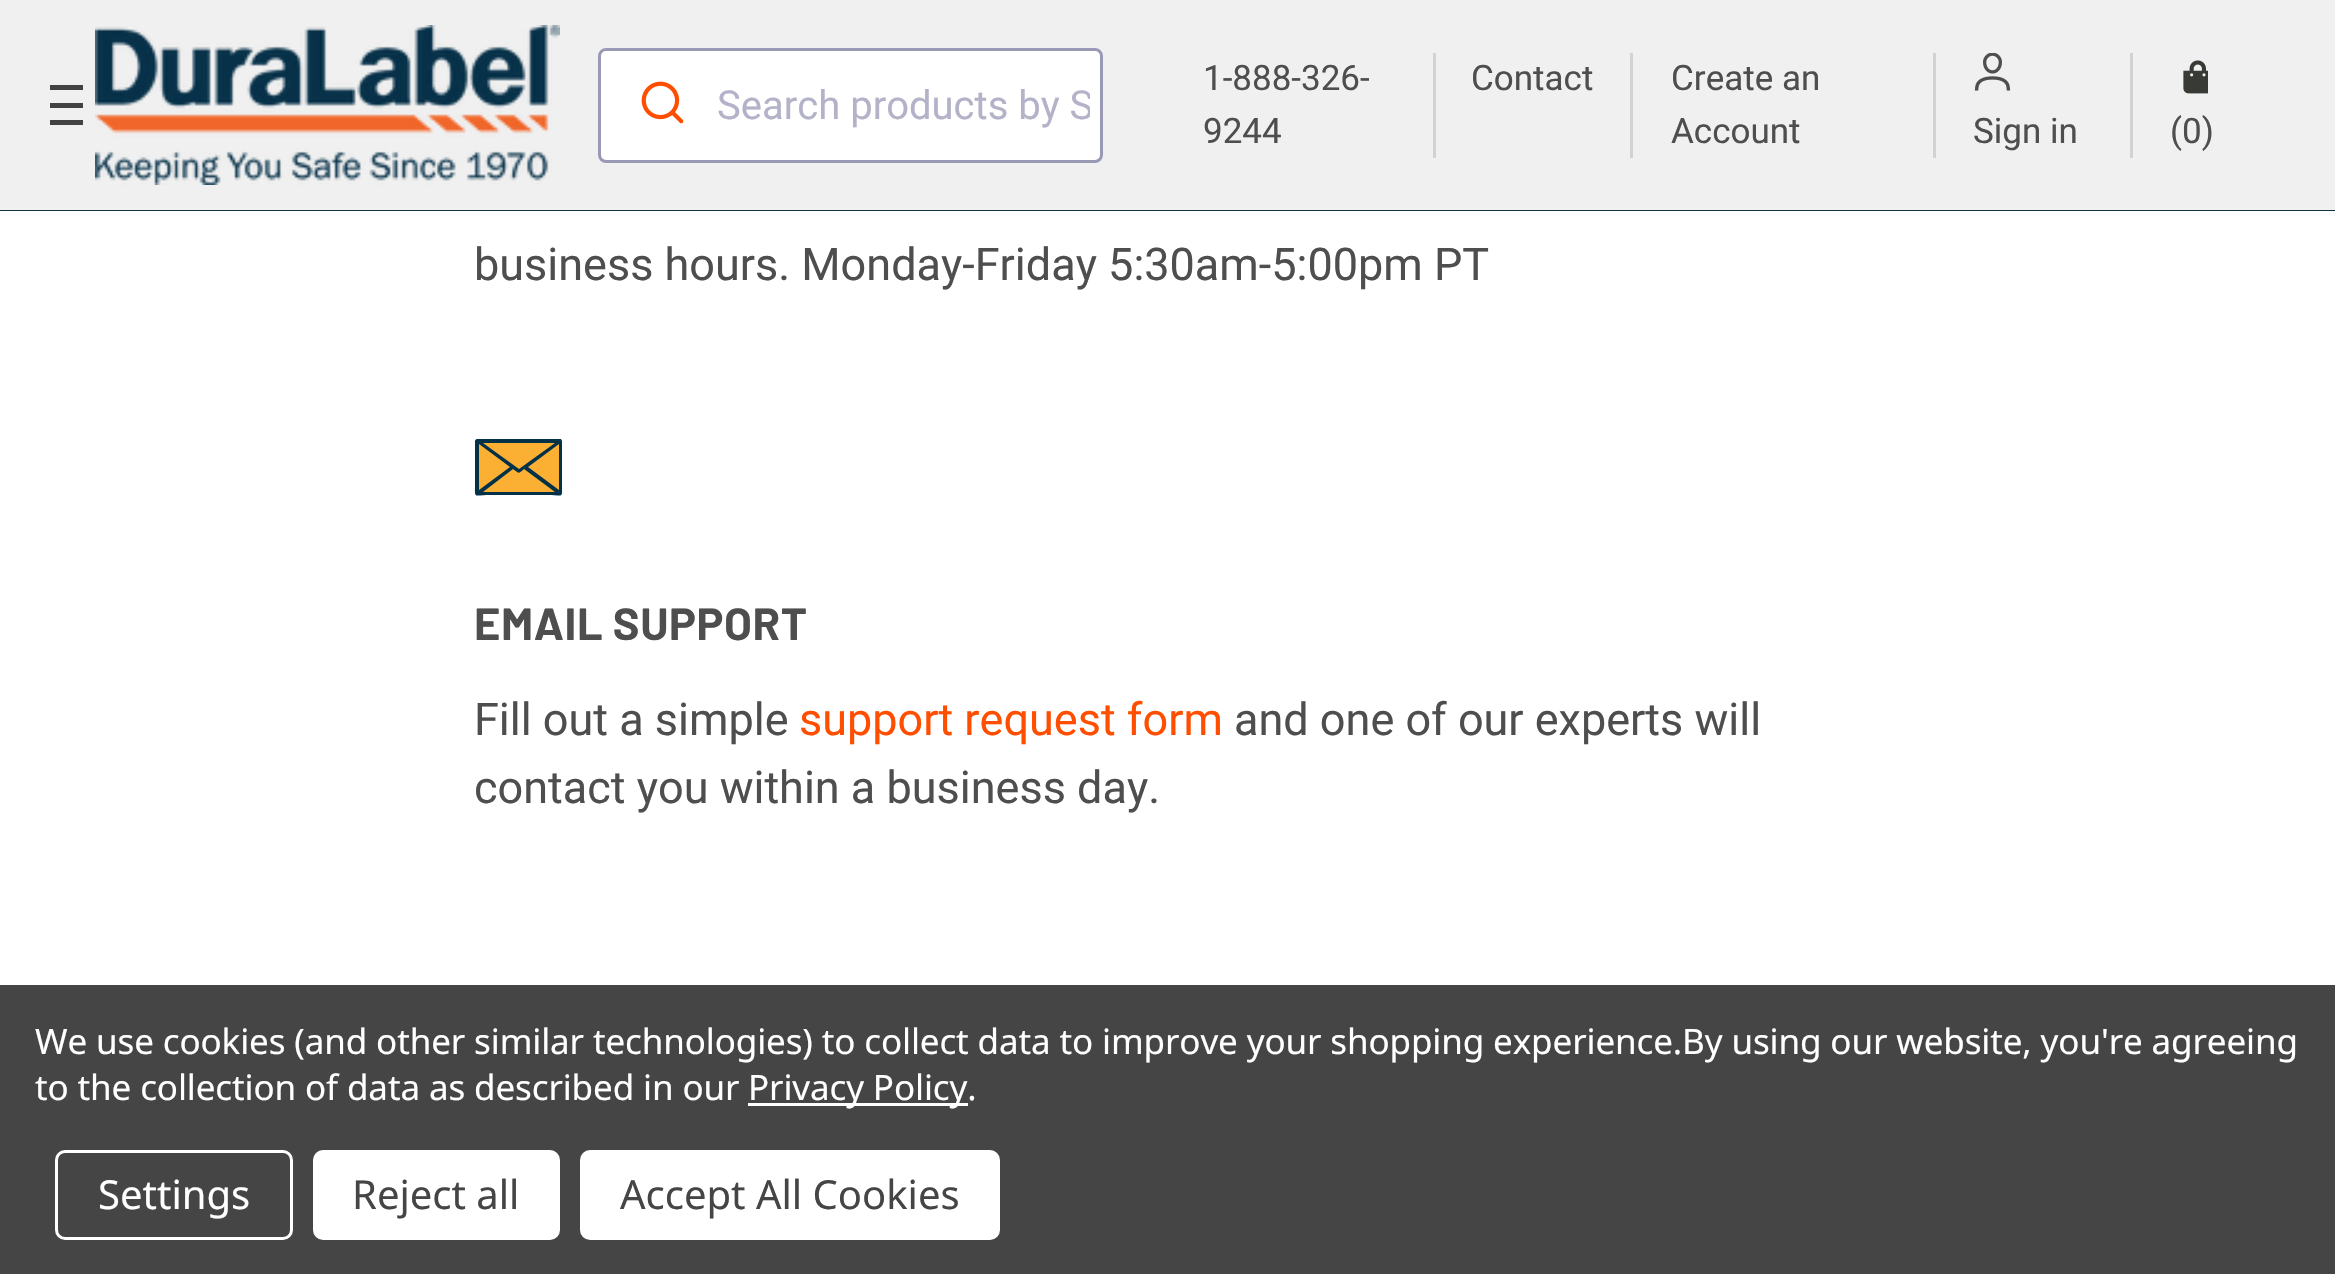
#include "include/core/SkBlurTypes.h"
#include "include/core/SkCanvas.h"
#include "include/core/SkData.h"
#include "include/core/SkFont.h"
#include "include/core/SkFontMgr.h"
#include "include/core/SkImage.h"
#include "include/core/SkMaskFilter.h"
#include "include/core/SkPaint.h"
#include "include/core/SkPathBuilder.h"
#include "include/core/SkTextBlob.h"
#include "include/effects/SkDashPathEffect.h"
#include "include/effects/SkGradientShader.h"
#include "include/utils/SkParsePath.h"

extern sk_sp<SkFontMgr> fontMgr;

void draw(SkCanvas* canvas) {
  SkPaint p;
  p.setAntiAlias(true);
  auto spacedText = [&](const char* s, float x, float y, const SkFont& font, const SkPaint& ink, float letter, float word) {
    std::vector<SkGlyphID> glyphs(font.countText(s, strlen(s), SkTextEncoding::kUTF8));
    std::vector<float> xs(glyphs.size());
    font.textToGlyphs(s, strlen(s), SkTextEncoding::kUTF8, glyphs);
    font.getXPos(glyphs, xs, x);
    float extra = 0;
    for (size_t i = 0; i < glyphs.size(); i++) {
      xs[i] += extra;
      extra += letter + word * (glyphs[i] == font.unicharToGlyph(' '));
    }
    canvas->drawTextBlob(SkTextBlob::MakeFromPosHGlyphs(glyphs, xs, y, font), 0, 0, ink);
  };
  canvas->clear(SK_ColorWHITE);
  p.setColor(SkColorSetRGB(240, 240, 240));
  canvas->drawRect(SkRect::MakeLTRB(0, 0, 2335, 210), p);
  p.setColor(SkColorSetRGB(66, 66, 66));
  canvas->drawRect(SkRect::MakeLTRB(50, 103, 83, 108), p);
  canvas->drawRect(SkRect::MakeLTRB(50, 85, 83, 90), p);
  canvas->drawRect(SkRect::MakeLTRB(50, 120, 83, 125), p);
  canvas->drawImageRect(SkImages::DeferredFromEncodedData(SkData::MakeFromFileName("images/1.png")), SkRect::MakeLTRB(95, 25, 560, 185), SkSamplingOptions());
  p.setColor(SK_ColorWHITE);
  canvas->drawRoundRect(SkRect::MakeLTRB(598, 48, 1103, 163), 8, 8, p);
  p.setStyle(SkPaint::kStroke_Style);
  p.setStrokeWidth(3);
  p.setColor(SkColorSetARGB(204, 128, 126, 163));
  canvas->drawRoundRect(SkRect::MakeLTRB(599.5f, 49.5f, 1101.5f, 161.5f), 6.5f, 6.5f, p);
  canvas->drawImageRect(SkImages::DeferredFromEncodedData(SkData::MakeFromFileName("images/2.png")), SkRect::MakeLTRB(641, 81, 684, 124), SkSamplingOptions());
  p.setStyle(SkPaint::kFill_Style);
  p.setColor(SkColorSetRGB(210, 210, 210));
  canvas->drawRect(SkRect::MakeLTRB(1433, 53, 1436, 158), p);
  canvas->drawRect(SkRect::MakeLTRB(1630, 53, 1633, 158), p);
  canvas->drawRect(SkRect::MakeLTRB(1933, 53, 1936, 158), p);
  canvas->drawImageRect(SkImages::DeferredFromEncodedData(SkData::MakeFromFileName("images/3.png")), SkRect::MakeLTRB(1974, 53, 2011, 91), SkSamplingOptions());
  canvas->drawRect(SkRect::MakeLTRB(2130, 53, 2133, 158), p);
  canvas->drawImageRect(SkImages::DeferredFromEncodedData(SkData::MakeFromFileName("images/4.png")), SkRect::MakeLTRB(2183, 60, 2208, 94), SkSamplingOptions());
  p.setColor(SkColorSetRGB(16, 50, 72));
  canvas->drawRect(SkRect::MakeLTRB(0, 210, 2335, 211), p);
  p.setColor(SkColorSetRGB(251, 176, 51));
  canvas->drawRect(SkRect::MakeLTRB(479, 443, 559, 492), p);
  p.setColor(SkColorSetRGB(2, 49, 72));
  canvas->drawPath(SkPathBuilder().moveTo(562, 441).lineTo(561, 439).lineTo(477, 439).cubicTo(476, 439, 475, 440, 475, 441).lineTo(475, 485).cubicTo(475, 499, 473, 495, 491, 495).lineTo(547, 495).cubicTo(564, 495, 562, 499, 562, 485).close().moveTo(559, 490).lineTo(528, 467).lineTo(559, 444).close().moveTo(555, 443).lineTo(519, 469).lineTo(483, 443).close().moveTo(510, 467).lineTo(479, 490).lineTo(479, 444).close().moveTo(483, 492).lineTo(513, 469).cubicTo(520, 474, 518, 474, 524, 469).lineTo(555, 492).close().detach(), p);
  p.setColor(SkColorSetRGB(69, 69, 69));
  canvas->drawRect(SkRect::MakeLTRB(0, 985, 2335, 1274), p);
  p.setColor(SK_ColorWHITE);
  canvas->drawRect(SkRect::MakeLTRB(748, 1103, 968, 1106), p);
  p.setStyle(SkPaint::kStroke_Style);
  canvas->drawRoundRect(SkRect::MakeLTRB(56.5f, 1151.5f, 291.5f, 1238.5f), 8.5f, 8.5f, p);
  p.setStyle(SkPaint::kFill_Style);
  canvas->drawRoundRect(SkRect::MakeLTRB(313, 1150, 560, 1240), 10, 10, p);
  canvas->drawRoundRect(SkRect::MakeLTRB(580, 1150, 1000, 1240), 10, 10, p);
  canvas->save();
  canvas->clipRect(SkRect::MakeLTRB(718, 83, 1090, 130));
  SkFont font1(fontMgr->matchFamilyStyle("Roboto", SkFontStyle::Normal()), 40);
  font1.setSubpixel(true);
  p.setColor(SkColorSetRGB(179, 178, 200));
  canvas->drawString("Search products by S", 717, 119, font1, p);
  canvas->restore();
  SkFont font2(fontMgr->matchFamilyStyle("Roboto", SkFontStyle::Normal()), 35);
  font2.setSubpixel(true);
  p.setColor(SkColorSetRGB(78, 78, 78));
  canvas->drawString("1-888-326-", 1203, 90, font2, p);
  canvas->drawString("9244", 1203, 143, font2, p);
  canvas->drawString("Contact", 1471, 90, font2, p);
  canvas->drawString("Create an", 1671, 90, font2, p);
  canvas->drawString("Account", 1671, 143, font2, p);
  canvas->drawString("Sign in", 1973, 143, font2, p);
  canvas->drawString("(0)", 2170, 143, font2, p);
  SkFont font3(fontMgr->matchFamilyStyle("Roboto", SkFontStyle::Normal()), 45);
  font3.setSubpixel(true);
  canvas->drawString("business hours. Monday-Friday 5:30am-5:00pm PT", 474, 280, font3, p);
  SkFont font4(fontMgr->matchFamilyStyle("Barlow", SkFontStyle::Bold()), 45);
  font4.setSubpixel(true);
  spacedText("EMAIL SUPPORT", 474, 640, font4, p, 0.6f, 0);
  canvas->drawString("Fill out a simple", 474, 735, font3, p);
  p.setColor(SkColorSetRGB(255, 78, 0));
  canvas->drawString("support request form", 799, 735, font3, p);
  p.setColor(SkColorSetRGB(78, 78, 78));
  canvas->drawString("and one of our experts will", 1234, 735, font3, p);
  canvas->drawString("contact you within a business day.", 474, 803, font3, p);
  SkFont font5(fontMgr->matchFamilyStyle("Noto Sans", SkFontStyle::Normal()), 35);
  font5.setSubpixel(true);
  p.setColor(SK_ColorWHITE);
  spacedText("We use cookies (and other similar technologies) to collect data to improve your shopping experience.By using our website, you're agreeing", 35, 1054, font5, p, -0.12f, 0);
  spacedText("to the collection of data as described in our", 35, 1100, font5, p, -0.12f, 0);
  spacedText("Privacy Policy.", 748, 1100, font5, p, -0.12f, 0);
  SkFont font6(fontMgr->matchFamilyStyle("Noto Sans", SkFontStyle::Normal()), 40);
  font6.setSubpixel(true);
  canvas->drawString("Settings", 98, 1209, font6, p);
  p.setColor(SkColorSetRGB(69, 69, 69));
  canvas->drawString("Reject all", 352, 1209, font6, p);
  canvas->drawString("Accept All Cookies", 620, 1209, font6, p);
}
